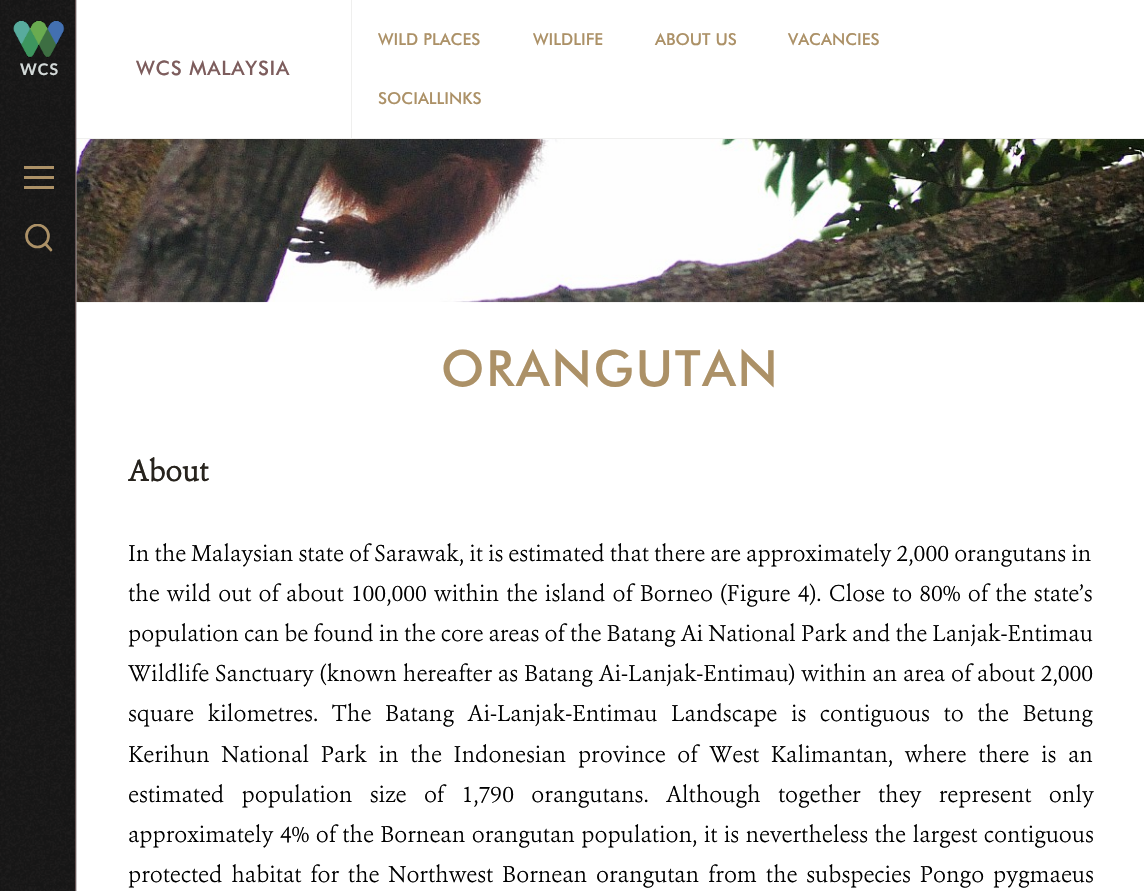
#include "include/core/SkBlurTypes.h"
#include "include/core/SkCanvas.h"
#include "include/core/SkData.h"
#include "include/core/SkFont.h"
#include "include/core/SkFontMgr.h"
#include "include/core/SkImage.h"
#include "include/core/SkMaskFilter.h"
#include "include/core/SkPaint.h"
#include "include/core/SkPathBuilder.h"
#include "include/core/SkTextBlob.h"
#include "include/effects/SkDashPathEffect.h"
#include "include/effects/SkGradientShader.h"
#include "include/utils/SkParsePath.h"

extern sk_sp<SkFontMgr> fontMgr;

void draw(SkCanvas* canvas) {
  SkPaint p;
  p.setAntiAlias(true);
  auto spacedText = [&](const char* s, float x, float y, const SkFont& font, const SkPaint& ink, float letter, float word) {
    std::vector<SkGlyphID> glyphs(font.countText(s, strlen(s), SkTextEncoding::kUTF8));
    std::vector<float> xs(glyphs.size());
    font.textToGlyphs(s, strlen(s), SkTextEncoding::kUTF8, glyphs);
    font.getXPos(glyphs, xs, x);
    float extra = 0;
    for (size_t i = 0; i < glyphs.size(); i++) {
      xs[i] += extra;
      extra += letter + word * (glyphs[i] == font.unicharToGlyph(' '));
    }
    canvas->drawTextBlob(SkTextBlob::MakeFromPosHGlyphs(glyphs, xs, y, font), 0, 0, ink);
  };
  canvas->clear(SK_ColorWHITE);
  p.setColor(SkColorSetRGB(239, 239, 238));
  canvas->drawRect(SkRect::MakeLTRB(76, 138, 1144, 139), p);
  canvas->drawImageRect(SkImages::DeferredFromEncodedData(SkData::MakeFromFileName("images/3.png")), SkRect::MakeLTRB(76, 139, 1144, 303), SkSamplingOptions());
  canvas->drawImageRect(SkImages::DeferredFromEncodedData(SkData::MakeFromFileName("images/1.png")), SkRect::MakeLTRB(0, 0, 77, 891), SkSamplingOptions());
  p.setColor(SkColorSetRGB(104, 85, 86));
  canvas->drawRect(SkRect::MakeLTRB(75, 0, 76, 891), p);
  canvas->drawImageRect(SkImages::DeferredFromEncodedData(SkData::MakeFromFileName("images/2.png")), SkRect::MakeLTRB(13, 20, 65, 58), SkSamplingOptions());
  p.setColor(SkColorSetRGB(172, 145, 103));
  canvas->drawRect(SkRect::MakeLTRB(24, 166, 54, 169), p);
  canvas->drawRect(SkRect::MakeLTRB(24, 176, 54, 179), p);
  canvas->drawRect(SkRect::MakeLTRB(24, 186, 54, 189), p);
  canvas->save();
  canvas->clipRect(SkRect::MakeLTRB(25, 224, 53, 251));
  p.setStyle(SkPaint::kStroke_Style);
  p.setStrokeWidth(2.7f);
  canvas->drawCircle(37.5f, 236, 11, p);
  canvas->restore();
  p.setStrokeCap(SkPaint::kRound_Cap);
  p.setStrokeJoin(SkPaint::kRound_Join);
  canvas->drawPath(SkPathBuilder().moveTo(45.5f, 244).lineTo(51, 250).detach(), p);
  p.setStyle(SkPaint::kFill_Style);
  p.setColor(SkColorSetRGB(239, 239, 238));
  canvas->drawRect(SkRect::MakeLTRB(351, 0, 352, 138), p);
  SkFont font1(fontMgr->matchFamilyStyle("Lato", SkFontStyle::Bold()), 16);
  font1.setSubpixel(true);
  p.setColor(SkColorSetRGB(211, 217, 216));
  spacedText("WCS", 20, 75, font1, p, 1, 0);
  SkFont font2(fontMgr->matchFamilyStyle("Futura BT", SkFontStyle(500, SkFontStyle::kNormal_Width, SkFontStyle::kUpright_Slant)), 20);
  font2.setSubpixel(true);
  p.setColor(SkColorSetRGB(125, 93, 93));
  spacedText("WCS MALAYSIA", 136, 75, font2, p, 0.75f, 0);
  SkFont font3(fontMgr->matchFamilyStyle("Futura BT", SkFontStyle(500, SkFontStyle::kNormal_Width, SkFontStyle::kUpright_Slant)), 16.5f);
  font3.setSubpixel(true);
  p.setColor(SkColorSetRGB(172, 145, 103));
  canvas->drawString("WILD PLACES", 378, 45, font3, p);
  canvas->drawString("WILDLIFE", 533, 45, font3, p);
  canvas->drawString("ABOUT US", 655, 45, font3, p);
  canvas->drawString("VACANCIES", 788, 45, font3, p);
  canvas->drawString("SOCIALLINKS", 378, 104, font3, p);
  SkFont font4(fontMgr->matchFamilyStyle("Futura BT", SkFontStyle(500, SkFontStyle::kNormal_Width, SkFontStyle::kUpright_Slant)), 50);
  font4.setSubpixel(true);
  spacedText("ORANGUTAN", 441, 386, font4, p, 2, 0);
  SkFont font5(fontMgr->matchFamilyStyle("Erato", SkFontStyle::Bold()), 29);
  font5.setSubpixel(true);
  p.setColor(SkColorSetRGB(39, 35, 29));
  canvas->drawString("About", 128, 481, font5, p);
  SkFont font6(fontMgr->matchFamilyStyle("Erato", SkFontStyle(300, SkFontStyle::kNormal_Width, SkFontStyle::kUpright_Slant)), 22.5f);
  font6.setSubpixel(true);
  p.setColor(SK_ColorBLACK);
  canvas->drawString("In the Malaysian state of Sarawak, it is estimated that there are approximately 2,000 orangutans in", 128, 561, font6, p);
  spacedText("the wild out of about 100,000 within the island of Borneo (Figure 4). Close to 80% of the state’s", 128, 601, font6, p, 0, 2);
  canvas->drawString("population can be found in the core areas of the Batang Ai National Park and the Lanjak-Entimau", 128, 641, font6, p);
  spacedText("Wildlife Sanctuary (known hereafter as Batang Ai-Lanjak-Entimau) within an area of about 2,000", 128, 681, font6, p, 0, 0.75f);
  spacedText("square kilometres. The Batang Ai-Lanjak-Entimau Landscape is contiguous to the Betung", 128, 721, font6, p, 0, 8.5f);
  spacedText("Kerihun National Park in the Indonesian province of West Kalimantan, where there is an", 128, 762, font6, p, 0, 6.6f);
  spacedText("estimated population size of 1,790 orangutans. Although together they represent only", 128, 802, font6, p, 0, 12.25f);
  spacedText("approximately 4% of the Bornean orangutan population, it is nevertheless the largest contiguous", 128, 842, font6, p, 0, 1.25f);
  spacedText("protected habitat for the Northwest Bornean orangutan from the subspecies Pongo pygmaeus", 128, 882, font6, p, 0, 3.75f);
}
